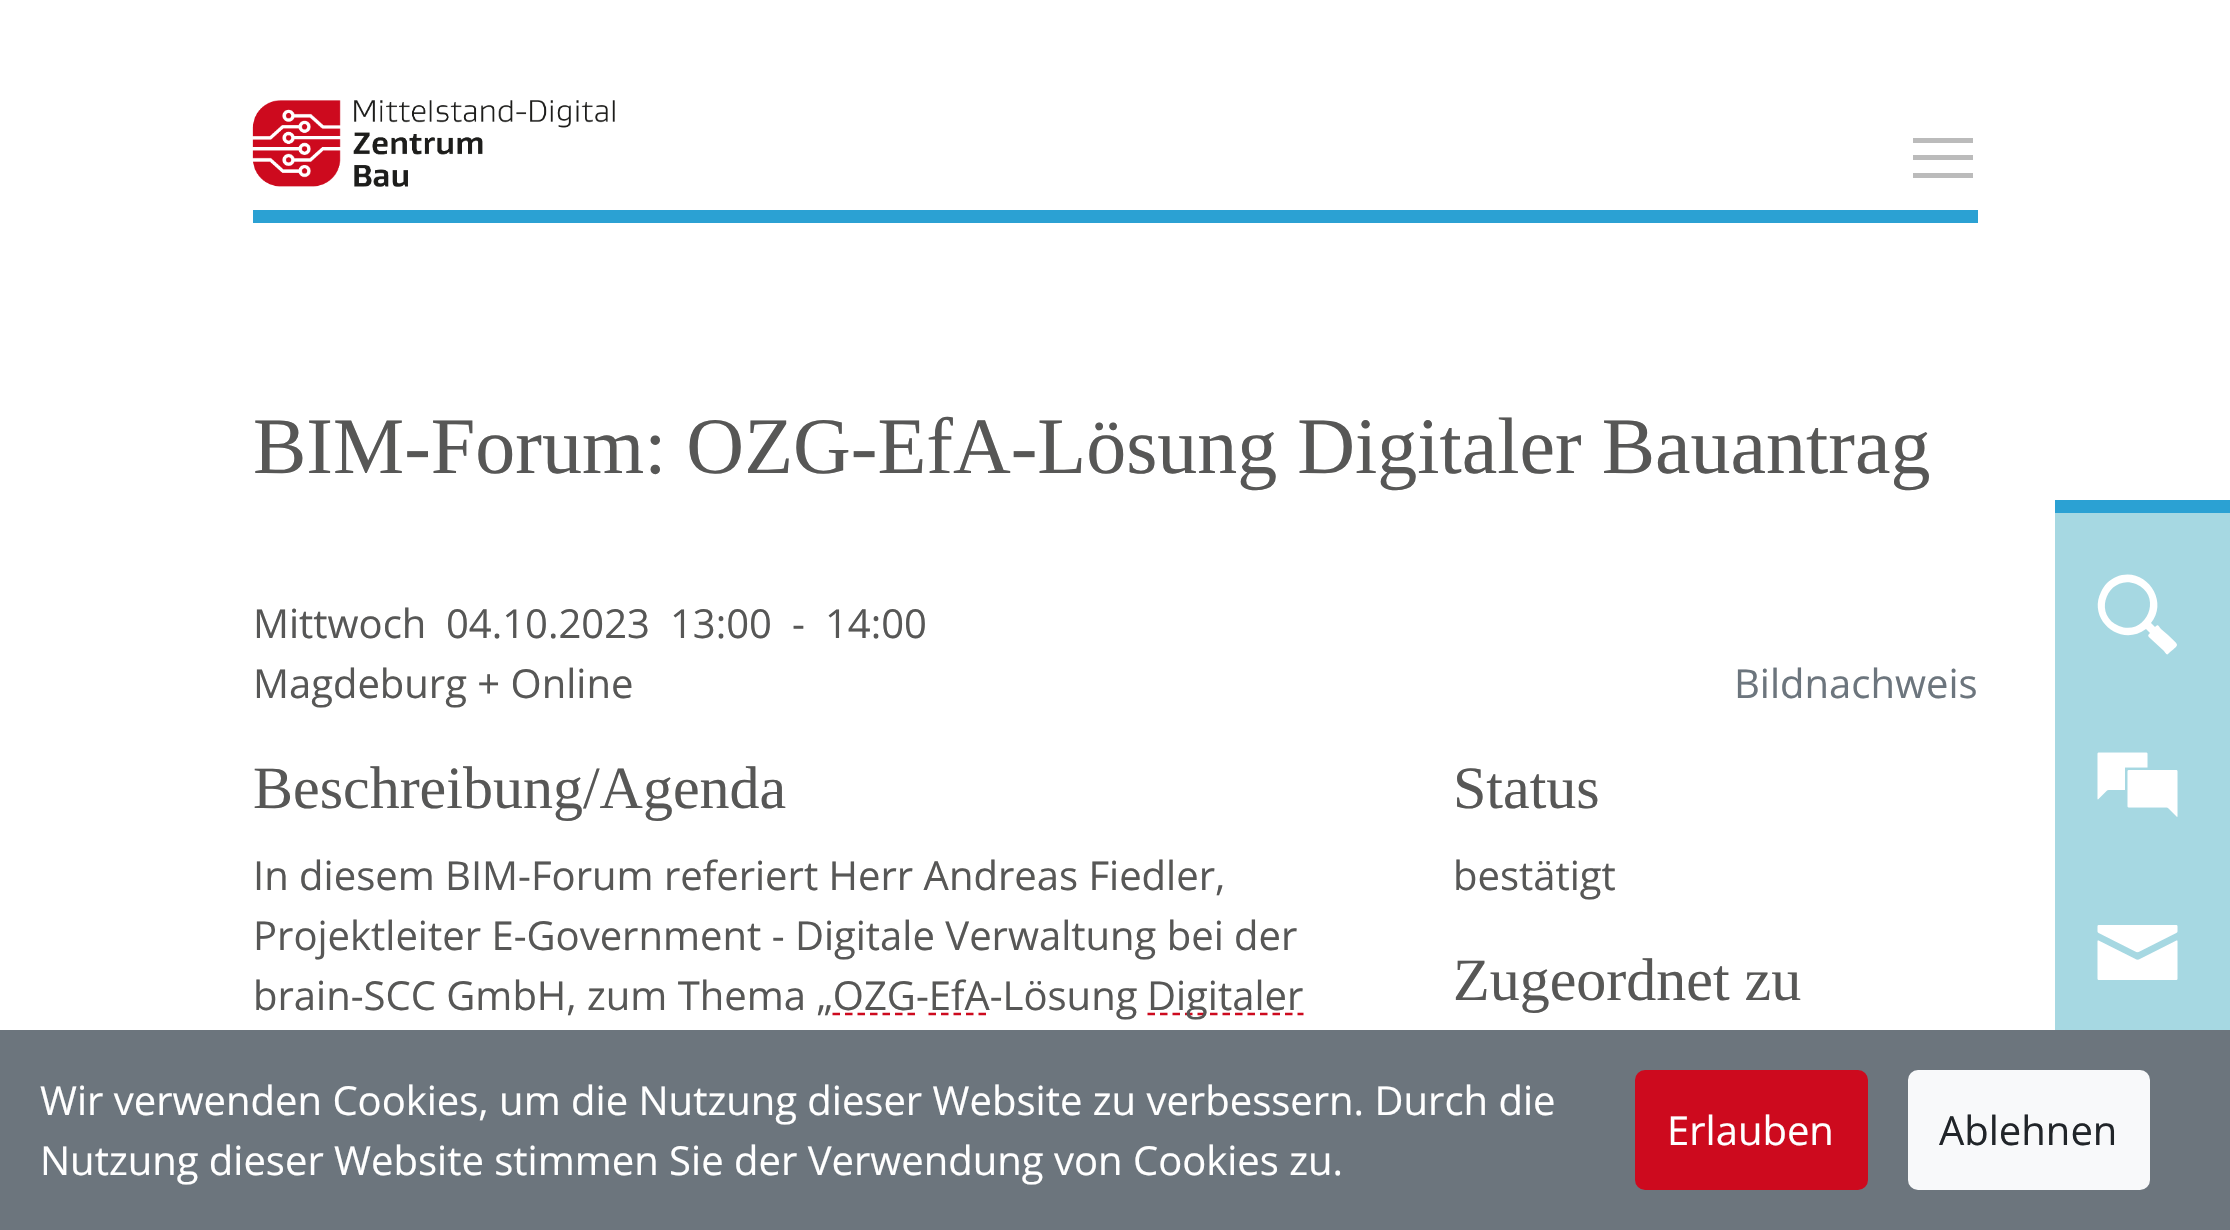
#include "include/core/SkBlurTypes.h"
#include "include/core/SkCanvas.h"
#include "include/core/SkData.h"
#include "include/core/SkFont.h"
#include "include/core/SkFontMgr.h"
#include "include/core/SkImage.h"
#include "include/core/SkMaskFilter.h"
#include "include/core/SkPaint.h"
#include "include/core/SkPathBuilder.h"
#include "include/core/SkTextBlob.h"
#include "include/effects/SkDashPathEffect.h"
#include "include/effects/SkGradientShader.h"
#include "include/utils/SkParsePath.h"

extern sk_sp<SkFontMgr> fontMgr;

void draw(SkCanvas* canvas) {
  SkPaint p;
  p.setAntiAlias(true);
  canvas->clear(SK_ColorWHITE);
  p.setColor(SkColorSetRGB(43, 161, 211));
  canvas->drawRect(SkRect::MakeLTRB(253, 210, 1978, 223), p);
  canvas->drawImageRect(SkImages::DeferredFromEncodedData(SkData::MakeFromFileName("images/1.png")), SkRect::MakeLTRB(252, 100, 615, 187), SkSamplingOptions());
  p.setColor(SkColorSetRGB(187, 187, 187));
  canvas->drawRect(SkRect::MakeLTRB(1913, 155, 1973, 160), p);
  canvas->drawRect(SkRect::MakeLTRB(1913, 138, 1973, 143), p);
  canvas->drawRect(SkRect::MakeLTRB(1913, 173, 1973, 178), p);
  p.setColor(SkColorSetRGB(166, 216, 226));
  canvas->drawRect(SkRect::MakeLTRB(2055, 513, 2230, 1030), p);
  p.setColor(SkColorSetRGB(43, 161, 211));
  canvas->drawRect(SkRect::MakeLTRB(2055, 500, 2230, 513), p);
  p.setColor(SK_ColorWHITE);
  canvas->drawPath(SkPathBuilder().moveTo(2116, 577).cubicTo(2144, 565, 2170, 600, 2151, 623).lineTo(2155, 627).cubicTo(2158, 624, 2158, 625, 2161, 629).lineTo(2168, 635).cubicTo(2180, 647, 2180, 643, 2168, 654).cubicTo(2167, 656, 2164, 651, 2164, 651).lineTo(2151, 639).cubicTo(2148, 636, 2147, 636, 2150, 633).lineTo(2146, 629).cubicTo(2121, 648, 2087, 620, 2101, 592).cubicTo(2104, 585, 2109, 580, 2116, 577).close().moveTo(2136, 584).cubicTo(2109, 573, 2091, 614, 2119, 626).cubicTo(2146, 637, 2164, 596, 2136, 584).close().detach(), p);
  canvas->drawImageRect(SkImages::DeferredFromEncodedData(SkData::MakeFromFileName("images/2.png")), SkRect::MakeLTRB(2097, 752, 2178, 817), SkSamplingOptions());
  canvas->drawImageRect(SkImages::DeferredFromEncodedData(SkData::MakeFromFileName("images/3.png")), SkRect::MakeLTRB(2097, 925, 2178, 980), SkSamplingOptions());
  p.setStyle(SkPaint::kStroke_Style);
  p.setStrokeWidth(2.5f);
  p.setColor(SkColorSetRGB(205, 10, 30));
  p.setPathEffect(SkDashPathEffect::Make({{7.5f, 5}}, 0));
  canvas->drawPath(SkPathBuilder().moveTo(1147.5f, 1014).lineTo(1303.5f, 1014).detach(), p);
  p.setPathEffect(nullptr);
  p.setStyle(SkPaint::kFill_Style);
  p.setColor(SkColorSetRGB(108, 117, 125));
  canvas->drawRect(SkRect::MakeLTRB(0, 1030, 2230, 1230), p);
  p.setColor(SkColorSetRGB(205, 10, 30));
  canvas->drawRoundRect(SkRect::MakeLTRB(1636.5f, 1071.5f, 1866.5f, 1188.5f), 8.5f, 8.5f, p);
  p.setStyle(SkPaint::kStroke_Style);
  p.setStrokeWidth(3);
  canvas->drawRoundRect(SkRect::MakeLTRB(1636.5f, 1071.5f, 1866.5f, 1188.5f), 8.5f, 8.5f, p);
  p.setStyle(SkPaint::kFill_Style);
  p.setColor(SkColorSetRGB(248, 249, 250));
  canvas->drawRoundRect(SkRect::MakeLTRB(1909.5f, 1071.5f, 2148.5f, 1188.5f), 8.5f, 8.5f, p);
  p.setStyle(SkPaint::kStroke_Style);
  canvas->drawRoundRect(SkRect::MakeLTRB(1909.5f, 1071.5f, 2148.5f, 1188.5f), 8.5f, 8.5f, p);
  SkFont font1(fontMgr->matchFamilyStyle("Liberation Serif", SkFontStyle::Normal()), 80);
  font1.setSubpixel(true);
  p.setStyle(SkPaint::kFill_Style);
  p.setColor(SkColorSetRGB(87, 87, 86));
  canvas->drawString("BIM-Forum: OZG-EfA-Lösung Digitaler Bauantrag", 253, 473, font1, p);
  SkFont font2(fontMgr->matchFamilyStyle("Open Sans", SkFontStyle::Normal()), 40);
  font2.setSubpixel(true);
  canvas->drawString("Mittwoch", 253, 638, font2, p);
  canvas->drawString("04.10.2023", 446, 638, font2, p);
  canvas->drawString("13:00", 670, 638, font2, p);
  canvas->drawString("-", 792, 638, font2, p);
  canvas->drawString("14:00", 825, 638, font2, p);
  canvas->drawString("Magdeburg + Online", 253, 698, font2, p);
  SkFont font3(fontMgr->matchFamilyStyle("Liberation Serif", SkFontStyle::Normal()), 60);
  font3.setSubpixel(true);
  canvas->drawString("Beschreibung/Agenda", 253, 808, font3, p);
  canvas->drawString("In diesem BIM-Forum referiert Herr Andreas Fiedler,", 253, 890, font2, p);
  canvas->drawString("Projektleiter E-Government - Digitale Verwaltung bei der", 253, 950, font2, p);
  canvas->drawString("brain-SCC GmbH, zum Thema „OZG-EfA-Lösung", 253, 1010, font2, p);
  canvas->drawString("Digitaler", 1147, 1010, font2, p);
  p.setStyle(SkPaint::kStroke_Style);
  p.setStrokeWidth(2.5f);
  p.setColor(SkColorSetRGB(205, 10, 30));
  p.setPathEffect(SkDashPathEffect::Make({{7.5f, 5}}, 0));
  canvas->drawPath(SkPathBuilder().moveTo(832.5f, 1014).lineTo(915.5f, 1014).detach(), p);
  p.setPathEffect(nullptr);
  p.setPathEffect(SkDashPathEffect::Make({{7.5f, 5}}, 0));
  canvas->drawPath(SkPathBuilder().moveTo(928.5f, 1014).lineTo(989.5f, 1014).detach(), p);
  p.setPathEffect(nullptr);
  p.setStyle(SkPaint::kFill_Style);
  p.setColor(SkColorSetRGB(108, 117, 125));
  canvas->drawString("Bildnachweis", 1734, 698, font2, p);
  p.setColor(SkColorSetRGB(87, 87, 86));
  canvas->drawString("Status", 1453, 808, font3, p);
  canvas->drawString("bestätigt", 1453, 890, font2, p);
  canvas->drawString("Zugeordnet zu", 1453, 1000, font3, p);
  p.setColor(SK_ColorWHITE);
  canvas->drawString("Wir verwenden Cookies, um die Nutzung dieser Website zu verbessern. Durch die", 40, 1115, font2, p);
  canvas->drawString("Nutzung dieser Website stimmen Sie der Verwendung von Cookies zu.", 40, 1175, font2, p);
  canvas->drawString("Erlauben", 1667, 1145, font2, p);
  p.setColor(SkColorSetRGB(33, 37, 41));
  canvas->drawString("Ablehnen", 1939, 1145, font2, p);
}
